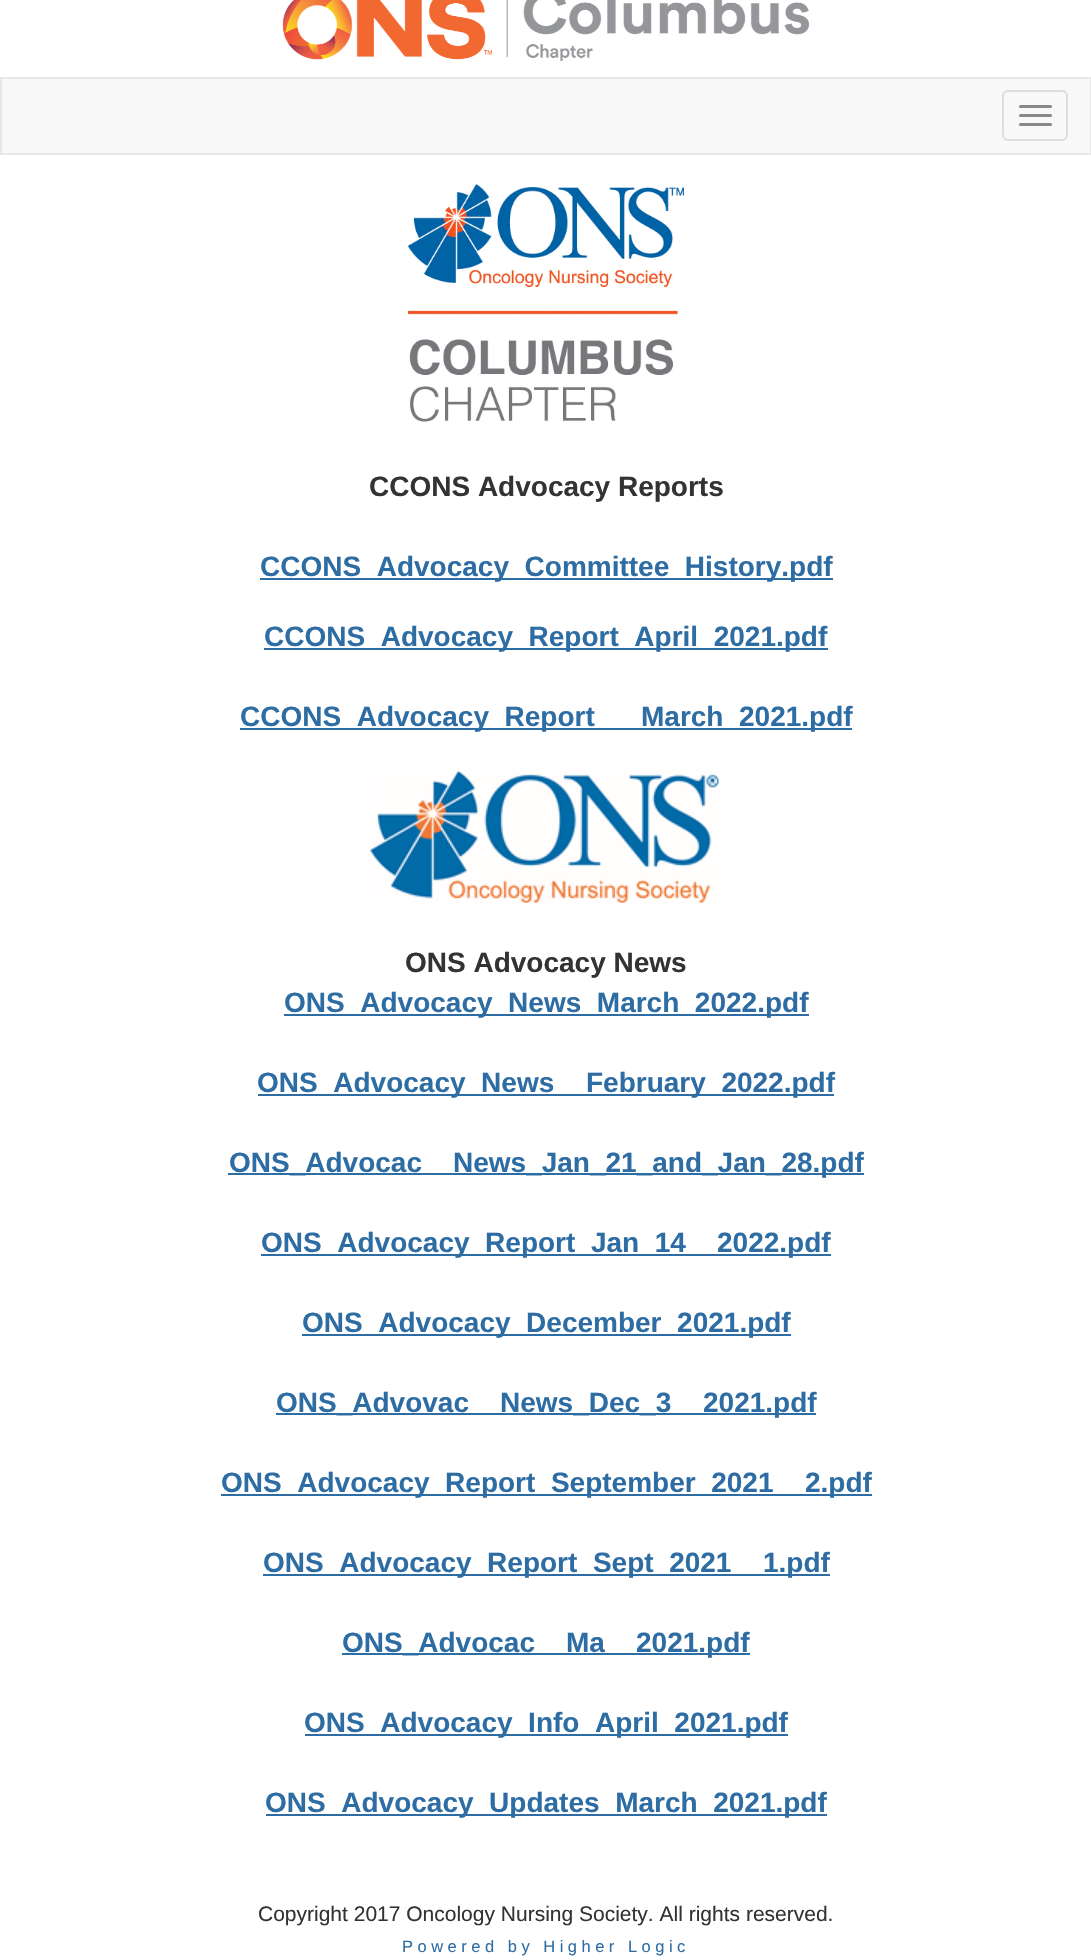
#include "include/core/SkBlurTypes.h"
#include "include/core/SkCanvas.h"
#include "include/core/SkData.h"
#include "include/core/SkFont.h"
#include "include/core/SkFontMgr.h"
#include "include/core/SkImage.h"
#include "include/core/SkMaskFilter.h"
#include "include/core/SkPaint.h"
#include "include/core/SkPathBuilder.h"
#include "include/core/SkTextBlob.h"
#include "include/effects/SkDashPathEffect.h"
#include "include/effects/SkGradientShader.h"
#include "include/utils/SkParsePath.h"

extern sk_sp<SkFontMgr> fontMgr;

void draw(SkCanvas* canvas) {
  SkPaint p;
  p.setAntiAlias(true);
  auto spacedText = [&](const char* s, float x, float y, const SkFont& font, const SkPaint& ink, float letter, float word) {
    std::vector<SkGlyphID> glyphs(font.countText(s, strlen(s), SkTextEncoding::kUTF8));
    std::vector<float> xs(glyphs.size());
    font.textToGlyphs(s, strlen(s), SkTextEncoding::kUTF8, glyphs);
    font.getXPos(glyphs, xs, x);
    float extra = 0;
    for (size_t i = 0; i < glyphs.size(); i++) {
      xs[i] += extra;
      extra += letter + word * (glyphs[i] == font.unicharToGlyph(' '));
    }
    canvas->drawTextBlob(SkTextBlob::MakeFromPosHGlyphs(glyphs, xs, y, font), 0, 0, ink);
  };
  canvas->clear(SK_ColorWHITE);
  canvas->drawImageRect(SkImages::DeferredFromEncodedData(SkData::MakeFromFileName("images/1.png")), SkRect::MakeLTRB(282, 0, 810, 61), SkSamplingOptions());
  p.setColor(SkColorSetRGB(248, 248, 248));
  canvas->drawRect(SkRect::MakeLTRB(1, 78, 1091, 154), p);
  p.setStyle(SkPaint::kStroke_Style);
  p.setStrokeWidth(2);
  p.setColor(SkColorSetRGB(231, 231, 231));
  canvas->drawRect(SkRect::MakeLTRB(1, 78, 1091, 154), p);
  p.setColor(SkColorSetRGB(221, 221, 221));
  canvas->drawRoundRect(SkRect::MakeLTRB(1003, 91, 1067, 140), 5, 5, p);
  p.setStyle(SkPaint::kFill_Style);
  p.setColor(SkColorSetRGB(136, 136, 136));
  canvas->drawRoundRect(SkRect::MakeLTRB(1019, 105, 1052, 108), 1.5f, 1.5f, p);
  canvas->drawRoundRect(SkRect::MakeLTRB(1019, 114, 1052, 117), 1.5f, 1.5f, p);
  canvas->drawRoundRect(SkRect::MakeLTRB(1019, 123, 1052, 126), 1.5f, 1.5f, p);
  canvas->drawImageRect(SkImages::DeferredFromEncodedData(SkData::MakeFromFileName("images/2.png")), SkRect::MakeLTRB(408, 184, 684, 422), SkSamplingOptions());
  p.setColor(SkColorSetRGB(46, 109, 164));
  canvas->drawRect(SkRect::MakeLTRB(260, 578, 833, 580), p);
  canvas->drawRect(SkRect::MakeLTRB(264, 648, 828, 650), p);
  canvas->drawRect(SkRect::MakeLTRB(240, 728, 852, 730), p);
  canvas->drawImageRect(SkImages::DeferredFromEncodedData(SkData::MakeFromFileName("images/3.png")), SkRect::MakeLTRB(370, 770, 719, 903), SkSamplingOptions());
  canvas->drawRect(SkRect::MakeLTRB(284, 1014, 809, 1016), p);
  canvas->drawRect(SkRect::MakeLTRB(258, 1094, 834, 1096), p);
  canvas->drawRect(SkRect::MakeLTRB(228, 1173, 864, 1175), p);
  canvas->drawRect(SkRect::MakeLTRB(261, 1254, 831, 1256), p);
  canvas->drawRect(SkRect::MakeLTRB(302, 1334, 791, 1336), p);
  canvas->drawRect(SkRect::MakeLTRB(276, 1413, 816, 1415), p);
  canvas->drawRect(SkRect::MakeLTRB(221, 1494, 872, 1496), p);
  canvas->drawRect(SkRect::MakeLTRB(263, 1574, 830, 1576), p);
  canvas->drawRect(SkRect::MakeLTRB(342, 1653, 750, 1655), p);
  canvas->drawRect(SkRect::MakeLTRB(305, 1734, 788, 1736), p);
  canvas->drawRect(SkRect::MakeLTRB(266, 1814, 827, 1816), p);
  SkFont font1(fontMgr->matchFamilyStyle("Liberation Sans", SkFontStyle::Bold()), 28);
  font1.setSubpixel(true);
  p.setColor(SkColorSetRGB(51, 51, 51));
  canvas->drawString("CCONS Advocacy Reports", 369, 496, font1, p);
  p.setColor(SkColorSetRGB(46, 109, 164));
  canvas->drawString("CCONS_Advocacy_Committee_History.pdf", 260, 576, font1, p);
  canvas->drawString("CCONS_Advocacy_Report_April_2021.pdf", 264, 646, font1, p);
  canvas->drawString("CCONS_Advocacy_Report", 240, 726, font1, p);
  canvas->drawString("March_2021.pdf", 641, 726, font1, p);
  p.setColor(SkColorSetRGB(51, 51, 51));
  canvas->drawString("ONS Advocacy News", 405, 972, font1, p);
  p.setColor(SkColorSetRGB(46, 109, 164));
  canvas->drawString("ONS_Advocacy_News_March_2022.pdf", 284, 1012, font1, p);
  canvas->drawString("ONS_Advocacy_News", 257, 1092, font1, p);
  canvas->drawString("February_2022.pdf", 586, 1092, font1, p);
  canvas->drawString("ONS_Advocac", 229, 1172, font1, p);
  canvas->drawString("News_Jan_21_and_Jan_28.pdf", 453, 1172, font1, p);
  canvas->drawString("ONS_Advocacy_Report_Jan_14", 261, 1252, font1, p);
  canvas->drawString("2022.pdf", 717, 1252, font1, p);
  canvas->drawString("ONS_Advocacy_December_2021.pdf", 302, 1332, font1, p);
  canvas->drawString("ONS_Advovac", 276, 1412, font1, p);
  canvas->drawString("News_Dec_3", 500, 1412, font1, p);
  canvas->drawString("2021.pdf", 703, 1412, font1, p);
  canvas->drawString("ONS_Advocacy_Report_September_2021", 221, 1492, font1, p);
  canvas->drawString("2.pdf", 805, 1492, font1, p);
  canvas->drawString("ONS_Advocacy_Report_Sept_2021", 263, 1572, font1, p);
  canvas->drawString("1.pdf", 763, 1572, font1, p);
  canvas->drawString("ONS_Advocac", 342, 1652, font1, p);
  canvas->drawString("Ma", 566, 1652, font1, p);
  canvas->drawString("2021.pdf", 636, 1652, font1, p);
  canvas->drawString("ONS_Advocacy_Info_April_2021.pdf", 304, 1732, font1, p);
  canvas->drawString("ONS_Advocacy_Updates_March_2021.pdf", 265, 1812, font1, p);
  SkFont font2(fontMgr->matchFamilyStyle("Liberation Sans", SkFontStyle::Normal()), 21);
  font2.setSubpixel(true);
  p.setColor(SkColorSetRGB(51, 51, 51));
  canvas->drawString("Copyright 2017 Oncology Nursing Society. All rights reserved.", 258, 1921, font2, p);
  SkFont font3(fontMgr->matchFamilyStyle("Liberation Sans", SkFontStyle::Normal()), 16.5f);
  font3.setSubpixel(true);
  p.setColor(SkColorSetRGB(46, 109, 164));
  spacedText("Powered by Higher Logic", 402, 1952, font3, p, 4.5f, 0);
}
